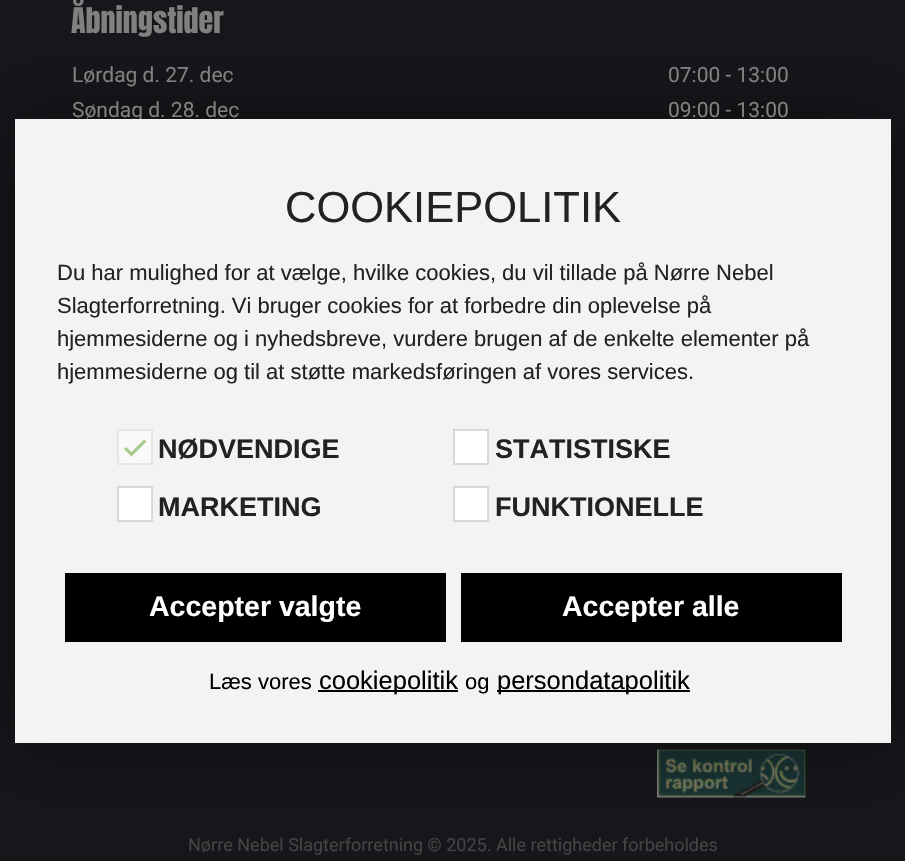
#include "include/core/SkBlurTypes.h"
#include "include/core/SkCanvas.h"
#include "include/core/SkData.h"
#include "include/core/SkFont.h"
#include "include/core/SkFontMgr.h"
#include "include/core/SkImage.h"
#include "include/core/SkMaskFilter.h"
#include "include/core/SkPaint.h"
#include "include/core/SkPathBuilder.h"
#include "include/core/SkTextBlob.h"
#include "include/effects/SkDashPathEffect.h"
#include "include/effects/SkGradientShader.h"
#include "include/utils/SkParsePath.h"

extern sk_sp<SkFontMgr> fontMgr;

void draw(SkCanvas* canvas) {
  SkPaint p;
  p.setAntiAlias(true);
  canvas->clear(SkColorSetRGB(21, 23, 26));
  canvas->drawImageRect(SkImages::DeferredFromEncodedData(SkData::MakeFromFileName("images/1.png")), SkRect::MakeLTRB(657, 749, 806, 798), SkSamplingOptions());
  p.setColor(SkColorSetARGB(117, 0, 0, 0));
  p.setMaskFilter(SkMaskFilter::MakeBlur(kNormal_SkBlurStyle, 37.5f));
  canvas->drawRect(SkRect::MakeLTRB(15, 119, 891, 743), p);
  p.setMaskFilter(nullptr);
  SkFont font1(fontMgr->matchFamilyStyle("Anton", SkFontStyle::Normal()), 30);
  font1.setSubpixel(true);
  p.setColor(SkColorSetRGB(128, 128, 128));
  canvas->drawString("Åbningstider", 71, 33, font1, p);
  SkFont font2(fontMgr->matchFamilyStyle("Roboto", SkFontStyle::Normal()), 21);
  font2.setSubpixel(true);
  canvas->drawString("Lørdag d. 27. dec", 72, 82, font2, p);
  canvas->drawString("07:00 - 13:00", 668, 82, font2, p);
  canvas->drawString("Søndag d. 28. dec", 72, 117, font2, p);
  canvas->drawString("09:00 - 13:00", 668, 117, font2, p);
  SkFont font3(fontMgr->matchFamilyStyle("Roboto", SkFontStyle::Normal()), 18);
  font3.setSubpixel(true);
  p.setColor(SkColorSetRGB(68, 68, 68));
  canvas->drawString("Nørre Nebel Slagterforretning © 2025. Alle rettigheder forbeholdes", 188, 851, font3, p);
  p.setColor(SkColorSetRGB(243, 243, 243));
  canvas->drawRect(SkRect::MakeLTRB(15, 119, 891, 743), p);
  SkFont font4(fontMgr->matchFamilyStyle("Liberation Sans", SkFontStyle::Normal()), 43.5f);
  font4.setSubpixel(true);
  p.setColor(SkColorSetRGB(34, 34, 34));
  canvas->drawString("COOKIEPOLITIK", 285, 222, font4, p);
  SkFont font5(fontMgr->matchFamilyStyle("Liberation Sans", SkFontStyle::Normal()), 22);
  font5.setSubpixel(true);
  canvas->drawString("Du har mulighed for at vælge, hvilke cookies, du vil tillade på Nørre Nebel", 57, 280, font5, p);
  canvas->drawString("Slagterforretning. Vi bruger cookies for at forbedre din oplevelse på", 57, 313, font5, p);
  canvas->drawString("hjemmesiderne og i nyhedsbreve, vurdere brugen af de enkelte elementer på", 57, 346, font5, p);
  canvas->drawString("hjemmesiderne og til at støtte markedsføringen af vores services.", 57, 379, font5, p);
  p.setColor(SkColorSetRGB(249, 249, 249));
  canvas->drawRect(SkRect::MakeLTRB(118, 430, 152, 464), p);
  p.setStyle(SkPaint::kStroke_Style);
  p.setStrokeWidth(2);
  p.setColor(SkColorSetRGB(229, 230, 231));
  canvas->drawRect(SkRect::MakeLTRB(118, 430, 152, 464), p);
  p.setStyle(SkPaint::kFill_Style);
  p.setColor(SkColorSetRGB(170, 203, 142));
  canvas->drawPath(SkPathBuilder().moveTo(144, 439.5f).lineTo(146.5f, 441.5f).lineTo(131.5f, 456.5f).lineTo(129.5f, 454).close().detach(), p);
  canvas->drawPath(SkPathBuilder().moveTo(126, 447).lineTo(133.5f, 454).lineTo(131.5f, 456.5f).lineTo(124, 449).close().detach(), p);
  SkFont font6(fontMgr->matchFamilyStyle("Liberation Sans", SkFontStyle::Bold()), 27);
  font6.setSubpixel(true);
  p.setColor(SkColorSetRGB(34, 34, 34));
  canvas->drawString("NØDVENDIGE", 158, 458, font6, p);
  p.setColor(SK_ColorWHITE);
  canvas->drawRect(SkRect::MakeLTRB(454, 430, 488, 464), p);
  p.setStyle(SkPaint::kStroke_Style);
  p.setColor(SkColorSetRGB(215, 216, 219));
  canvas->drawRect(SkRect::MakeLTRB(454, 430, 488, 464), p);
  p.setStyle(SkPaint::kFill_Style);
  p.setColor(SkColorSetRGB(34, 34, 34));
  canvas->drawString("STATISTISKE", 495, 458, font6, p);
  p.setColor(SK_ColorWHITE);
  canvas->drawRect(SkRect::MakeLTRB(118, 487, 152, 521), p);
  p.setStyle(SkPaint::kStroke_Style);
  p.setColor(SkColorSetRGB(215, 216, 219));
  canvas->drawRect(SkRect::MakeLTRB(118, 487, 152, 521), p);
  p.setStyle(SkPaint::kFill_Style);
  p.setColor(SkColorSetRGB(34, 34, 34));
  canvas->drawString("MARKETING", 158, 516, font6, p);
  p.setColor(SK_ColorWHITE);
  canvas->drawRect(SkRect::MakeLTRB(454, 487, 488, 521), p);
  p.setStyle(SkPaint::kStroke_Style);
  p.setColor(SkColorSetRGB(215, 216, 219));
  canvas->drawRect(SkRect::MakeLTRB(454, 487, 488, 521), p);
  p.setStyle(SkPaint::kFill_Style);
  p.setColor(SkColorSetRGB(34, 34, 34));
  canvas->drawString("FUNKTIONELLE", 495, 516, font6, p);
  p.setColor(SK_ColorBLACK);
  canvas->drawRect(SkRect::MakeLTRB(65, 573, 446, 642), p);
  SkFont font7(fontMgr->matchFamilyStyle("Liberation Sans", SkFontStyle::Bold()), 28.5f);
  font7.setSubpixel(true);
  p.setColor(SK_ColorWHITE);
  canvas->drawString("Accepter valgte", 149, 616, font7, p);
  p.setColor(SK_ColorBLACK);
  canvas->drawRect(SkRect::MakeLTRB(461, 573, 842, 642), p);
  p.setColor(SK_ColorWHITE);
  canvas->drawString("Accepter alle", 562, 616, font7, p);
  p.setColor(SK_ColorBLACK);
  canvas->drawString("Læs vores", 209, 689, font5, p);
  canvas->drawRect(SkRect::MakeLTRB(318, 690, 458, 692), p);
  SkFont font8(fontMgr->matchFamilyStyle("Liberation Sans", SkFontStyle::Normal()), 25.5f);
  font8.setSubpixel(true);
  canvas->drawString("cookiepolitik", 319, 689, font8, p);
  canvas->drawString("og", 465, 689, font5, p);
  canvas->drawRect(SkRect::MakeLTRB(497, 690, 690, 692), p);
  canvas->drawString("persondatapolitik", 497, 689, font8, p);
}
